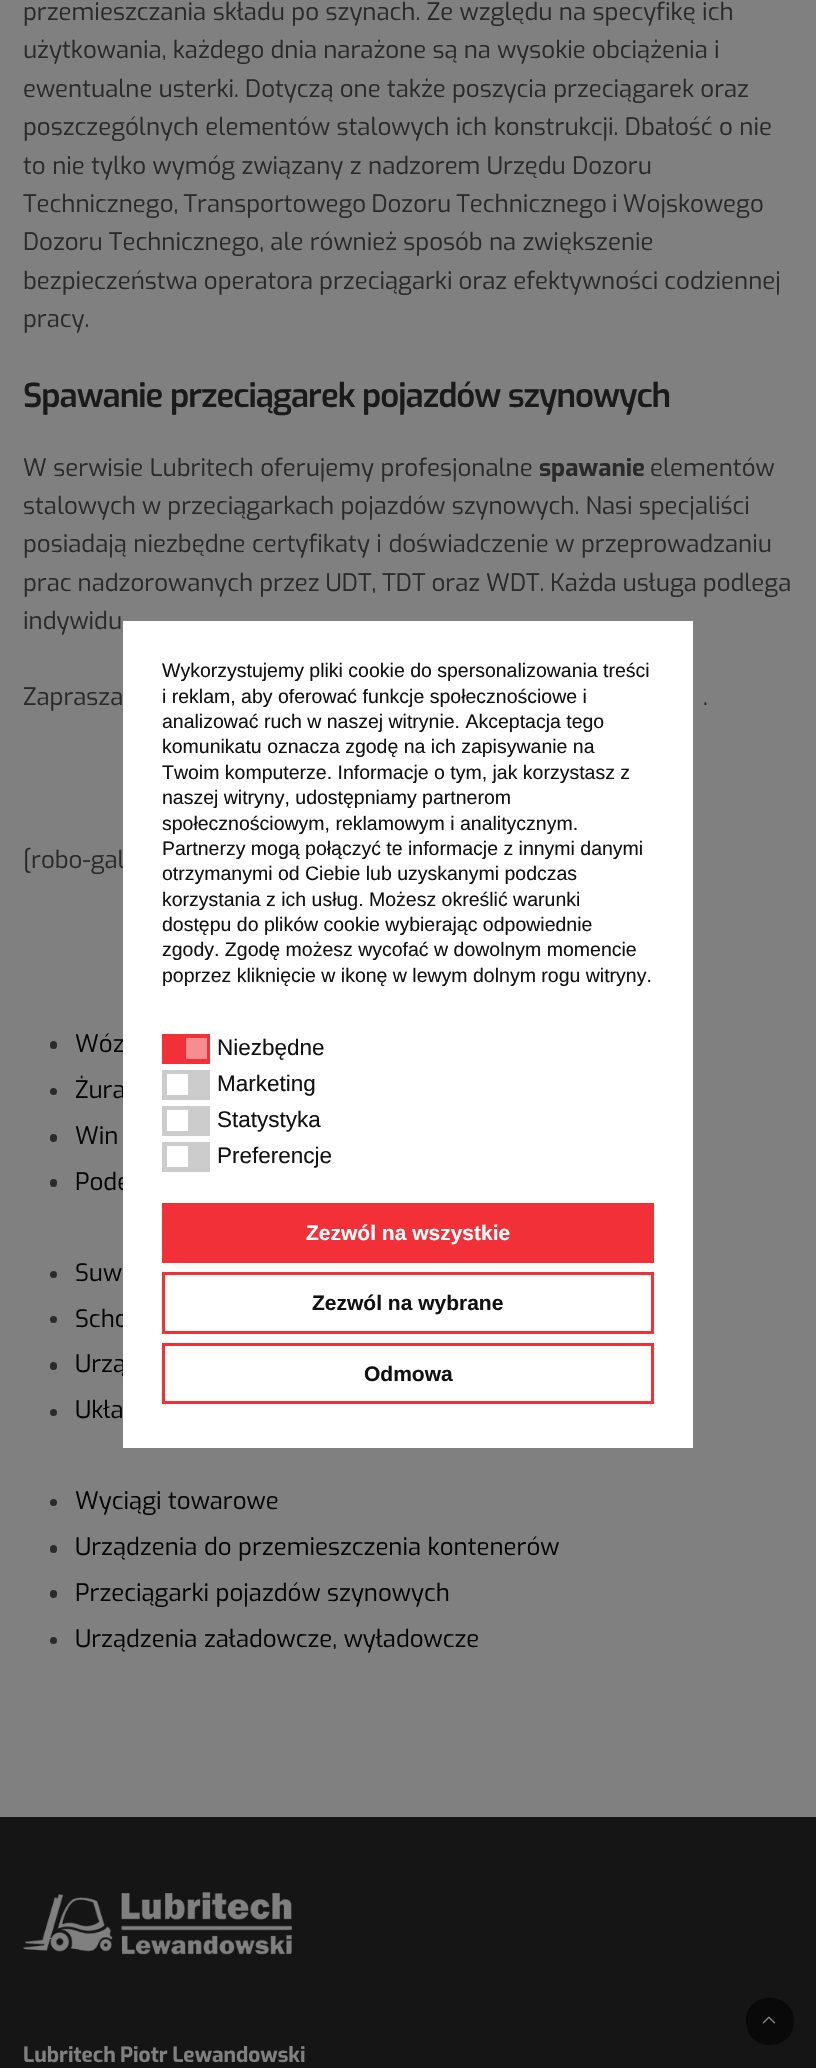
#include "include/core/SkBlurTypes.h"
#include "include/core/SkCanvas.h"
#include "include/core/SkData.h"
#include "include/core/SkFont.h"
#include "include/core/SkFontMgr.h"
#include "include/core/SkImage.h"
#include "include/core/SkMaskFilter.h"
#include "include/core/SkPaint.h"
#include "include/core/SkPathBuilder.h"
#include "include/core/SkTextBlob.h"
#include "include/effects/SkDashPathEffect.h"
#include "include/effects/SkGradientShader.h"
#include "include/utils/SkParsePath.h"

extern sk_sp<SkFontMgr> fontMgr;

void draw(SkCanvas* canvas) {
  SkPaint p;
  p.setAntiAlias(true);
  auto spacedText = [&](const char* s, float x, float y, const SkFont& font, const SkPaint& ink, float letter, float word) {
    std::vector<SkGlyphID> glyphs(font.countText(s, strlen(s), SkTextEncoding::kUTF8));
    std::vector<float> xs(glyphs.size());
    font.textToGlyphs(s, strlen(s), SkTextEncoding::kUTF8, glyphs);
    font.getXPos(glyphs, xs, x);
    float extra = 0;
    for (size_t i = 0; i < glyphs.size(); i++) {
      xs[i] += extra;
      extra += letter + word * (glyphs[i] == font.unicharToGlyph(' '));
    }
    canvas->drawTextBlob(SkTextBlob::MakeFromPosHGlyphs(glyphs, xs, y, font), 0, 0, ink);
  };
  canvas->clear(SkColorSetRGB(128, 128, 128));
  p.setColor(SkColorSetRGB(42, 42, 42));
  canvas->drawRoundRect(SkRect::MakeLTRB(50, 1041, 57, 1049), 3.5f, 3.5f, p);
  canvas->drawCircle(53.5f, 1091.5f, 3.5f, p);
  canvas->drawRoundRect(SkRect::MakeLTRB(50, 1134, 57, 1142), 3.5f, 3.5f, p);
  canvas->drawRoundRect(SkRect::MakeLTRB(50, 1179, 57, 1187), 3.5f, 3.5f, p);
  canvas->drawCircle(53.5f, 1274.5f, 3.5f, p);
  canvas->drawCircle(53.5f, 1319.5f, 3.5f, p);
  canvas->drawRoundRect(SkRect::MakeLTRB(50, 1362, 57, 1370), 3.5f, 3.5f, p);
  canvas->drawCircle(53.5f, 1412.5f, 3.5f, p);
  canvas->drawCircle(53.5f, 1502.5f, 3.5f, p);
  canvas->drawRoundRect(SkRect::MakeLTRB(50, 1545, 57, 1553), 3.5f, 3.5f, p);
  canvas->drawRoundRect(SkRect::MakeLTRB(50, 1590, 57, 1598), 3.5f, 3.5f, p);
  canvas->drawCircle(53.5f, 1640.5f, 3.5f, p);
  p.setColor(SkColorSetRGB(21, 21, 21));
  canvas->drawRect(SkRect::MakeLTRB(0, 1817, 816, 2068), p);
  p.setColor(SkColorSetRGB(9, 9, 9));
  canvas->drawPath(SkPathBuilder().moveTo(794, 2021).cubicTo(794, 2053, 746, 2053, 746, 2021).cubicTo(745, 1990, 794, 1990, 794, 2021).close().detach(), p);
  canvas->drawImageRect(SkImages::DeferredFromEncodedData(SkData::MakeFromFileName("images/1.png")), SkRect::MakeLTRB(762, 2016, 776, 2024), SkSamplingOptions());
  canvas->drawImageRect(SkImages::DeferredFromEncodedData(SkData::MakeFromFileName("images/2.png")), SkRect::MakeLTRB(23, 1892, 292, 1955), SkSamplingOptions());
  SkFont font1(fontMgr->matchFamilyStyle("Exo", SkFontStyle::Normal()), 24);
  font1.setSubpixel(true);
  p.setColor(SkColorSetRGB(42, 42, 42));
  canvas->drawString("przemieszczania składu po szynach. Ze względu na specyfikę ich", 23, 20, font1, p);
  spacedText("użytkowania, każdego dnia narażone są na wysokie obciążenia i", 23, 58, font1, p, 0, -0.25f);
  spacedText("ewentualne usterki. Dotyczą one także poszycia przeciągarek oraz", 23, 97, font1, p, 0, -0.25f);
  canvas->drawString("poszczególnych elementów stalowych ich konstrukcji. Dbałość o nie", 23, 135, font1, p);
  canvas->drawString("to nie tylko wymóg związany z nadzorem Urzędu Dozoru", 23, 174, font1, p);
  spacedText("Technicznego, Transportowego Dozoru Technicznego i Wojskowego", 23, 212, font1, p, 0, -1.25f);
  spacedText("Dozoru Technicznego, ale również sposób na zwiększenie", 23, 250, font1, p, 0, -0.25f);
  spacedText("bezpieczeństwa operatora przeciągarki oraz efektywności codziennej", 23, 289, font1, p, 0, -0.5f);
  canvas->drawString("pracy.", 23, 327, font1, p);
  SkFont font2(fontMgr->matchFamilyStyle("Exo", SkFontStyle(600, SkFontStyle::kNormal_Width, SkFontStyle::kUpright_Slant)), 33);
  font2.setSubpixel(true);
  p.setColor(SkColorSetRGB(26, 26, 26));
  spacedText("Spawanie przeciągarek pojazdów szynowych", 23, 407, font2, p, -1, 0);
  p.setColor(SkColorSetRGB(42, 42, 42));
  canvas->drawString("W serwisie Lubritech oferujemy profesjonalne", 23, 476, font1, p);
  SkFont font3(fontMgr->matchFamilyStyle("Exo", SkFontStyle::Bold()), 24);
  font3.setSubpixel(true);
  canvas->drawString("spawanie", 539, 476, font3, p);
  canvas->drawString("elementów", 650, 476, font1, p);
  spacedText("stalowych w przeciągarkach pojazdów szynowych. Nasi specjaliści", 23, 514, font1, p, 0, -0.25f);
  canvas->drawString("posiadają niezbędne certyfikaty i doświadczenie w przeprowadzaniu", 23, 552, font1, p);
  spacedText("prac nadzorowanych przez UDT, TDT oraz WDT. Każda usługa podlega", 23, 591, font1, p, 0, -0.5f);
  canvas->drawString("indywidu", 23, 629, font1, p);
  canvas->drawString("Zaprasza", 23, 705, font1, p);
  canvas->drawString(".", 703, 705, font1, p);
  canvas->drawString("[robo-gal", 23, 868, font1, p);
  p.setColor(SkColorSetRGB(5, 5, 5));
  canvas->drawString("Wóz", 75, 1052, font1, p);
  canvas->drawString("Żura", 75, 1098, font1, p);
  canvas->drawString("Win", 75, 1144, font1, p);
  canvas->drawString("Pode", 75, 1190, font1, p);
  canvas->drawString("Suw", 75, 1281, font1, p);
  canvas->drawString("Scho", 75, 1327, font1, p);
  canvas->drawString("Urzą", 75, 1372, font1, p);
  canvas->drawString("Ukła", 75, 1418, font1, p);
  canvas->drawString("Wyciągi towarowe", 75, 1509, font1, p);
  canvas->drawString("Urządzenia do przemieszczenia kontenerów", 75, 1555, font1, p);
  canvas->drawString("Przeciągarki pojazdów szynowych", 75, 1601, font1, p);
  canvas->drawString("Urządzenia załadowcze, wyładowcze", 75, 1647, font1, p);
  SkFont font4(fontMgr->matchFamilyStyle("Exo", SkFontStyle::Bold()), 21);
  font4.setSubpixel(true);
  p.setColor(SkColorSetRGB(128, 128, 128));
  spacedText("Lubritech Piotr Lewandowski", 23, 2062, font4, p, 0, -1);
  p.setColor(SK_ColorWHITE);
  canvas->drawRect(SkRect::MakeLTRB(123, 621, 693, 1448), p);
  SkFont font5(fontMgr->matchFamilyStyle("Liberation Sans", SkFontStyle::Normal()), 19.5f);
  font5.setSubpixel(true);
  p.setColor(SkColorSetRGB(17, 17, 17));
  canvas->drawString("Wykorzystujemy pliki cookie do spersonalizowania treści", 162, 677, font5, p);
  canvas->drawString("i reklam, aby oferować funkcje społecznościowe i", 162, 703, font5, p);
  canvas->drawString("analizować ruch w naszej witrynie. Akceptacja tego", 162, 728, font5, p);
  canvas->drawString("komunikatu oznacza zgodę na ich zapisywanie na", 162, 753, font5, p);
  canvas->drawString("Twoim komputerze. Informacje o tym, jak korzystasz z", 162, 779, font5, p);
  canvas->drawString("naszej witryny, udostępniamy partnerom", 162, 804, font5, p);
  canvas->drawString("społecznościowym, reklamowym i analitycznym.", 162, 830, font5, p);
  canvas->drawString("Partnerzy mogą połączyć te informacje z innymi danymi", 162, 855, font5, p);
  canvas->drawString("otrzymanymi od Ciebie lub uzyskanymi podczas", 162, 880, font5, p);
  canvas->drawString("korzystania z ich usług. Możesz określić warunki", 162, 906, font5, p);
  canvas->drawString("dostępu do plików cookie wybierając odpowiednie", 162, 931, font5, p);
  canvas->drawString("zgody. Zgodę możesz wycofać w dowolnym momencie", 162, 956, font5, p);
  canvas->drawString("poprzez kliknięcie w ikonę w lewym dolnym rogu witryny.", 162, 982, font5, p);
  p.setColor(SkColorSetRGB(241, 48, 55));
  canvas->drawRect(SkRect::MakeLTRB(162, 1034, 210, 1064), p);
  p.setColor(SkColorSetRGB(247, 141, 145));
  canvas->drawRect(SkRect::MakeLTRB(186, 1038, 207, 1059), p);
  SkFont font6(fontMgr->matchFamilyStyle("Liberation Sans", SkFontStyle::Normal()), 22.5f);
  font6.setSubpixel(true);
  p.setColor(SkColorSetRGB(17, 17, 17));
  canvas->drawString("Niezbędne", 217, 1055, font6, p);
  p.setColor(SkColorSetRGB(204, 204, 204));
  canvas->drawRect(SkRect::MakeLTRB(162, 1070, 210, 1100), p);
  p.setColor(SK_ColorWHITE);
  canvas->drawRect(SkRect::MakeLTRB(167, 1074, 188, 1095), p);
  p.setColor(SkColorSetRGB(17, 17, 17));
  canvas->drawString("Marketing", 217, 1091, font6, p);
  p.setColor(SkColorSetRGB(204, 204, 204));
  canvas->drawRect(SkRect::MakeLTRB(162, 1106, 210, 1136), p);
  p.setColor(SK_ColorWHITE);
  canvas->drawRect(SkRect::MakeLTRB(167, 1110, 188, 1131), p);
  p.setColor(SkColorSetRGB(17, 17, 17));
  canvas->drawString("Statystyka", 217, 1127, font6, p);
  p.setColor(SkColorSetRGB(204, 204, 204));
  canvas->drawRect(SkRect::MakeLTRB(162, 1142, 210, 1172), p);
  p.setColor(SK_ColorWHITE);
  canvas->drawRect(SkRect::MakeLTRB(167, 1146, 188, 1167), p);
  p.setColor(SkColorSetRGB(17, 17, 17));
  canvas->drawString("Preferencje", 217, 1163, font6, p);
  p.setColor(SkColorSetRGB(241, 48, 55));
  canvas->drawRect(SkRect::MakeLTRB(162, 1203, 654, 1263), p);
  SkFont font7(fontMgr->matchFamilyStyle("Liberation Sans", SkFontStyle::Bold()), 21);
  font7.setSubpixel(true);
  p.setColor(SK_ColorWHITE);
  canvas->drawString("Zezwól na wszystkie", 306, 1240, font7, p);
  p.setStyle(SkPaint::kStroke_Style);
  p.setStrokeWidth(3);
  p.setColor(SkColorSetRGB(241, 48, 55));
  canvas->drawRect(SkRect::MakeLTRB(163.5f, 1273.5f, 652.5f, 1332.5f), p);
  p.setStyle(SkPaint::kFill_Style);
  p.setColor(SkColorSetRGB(17, 17, 17));
  canvas->drawString("Zezwól na wybrane", 312, 1310, font7, p);
  p.setStyle(SkPaint::kStroke_Style);
  p.setColor(SkColorSetRGB(241, 48, 55));
  canvas->drawRect(SkRect::MakeLTRB(163.5f, 1344.5f, 652.5f, 1402.5f), p);
  p.setStyle(SkPaint::kFill_Style);
  p.setColor(SkColorSetRGB(17, 17, 17));
  canvas->drawString("Odmowa", 364, 1381, font7, p);
}
